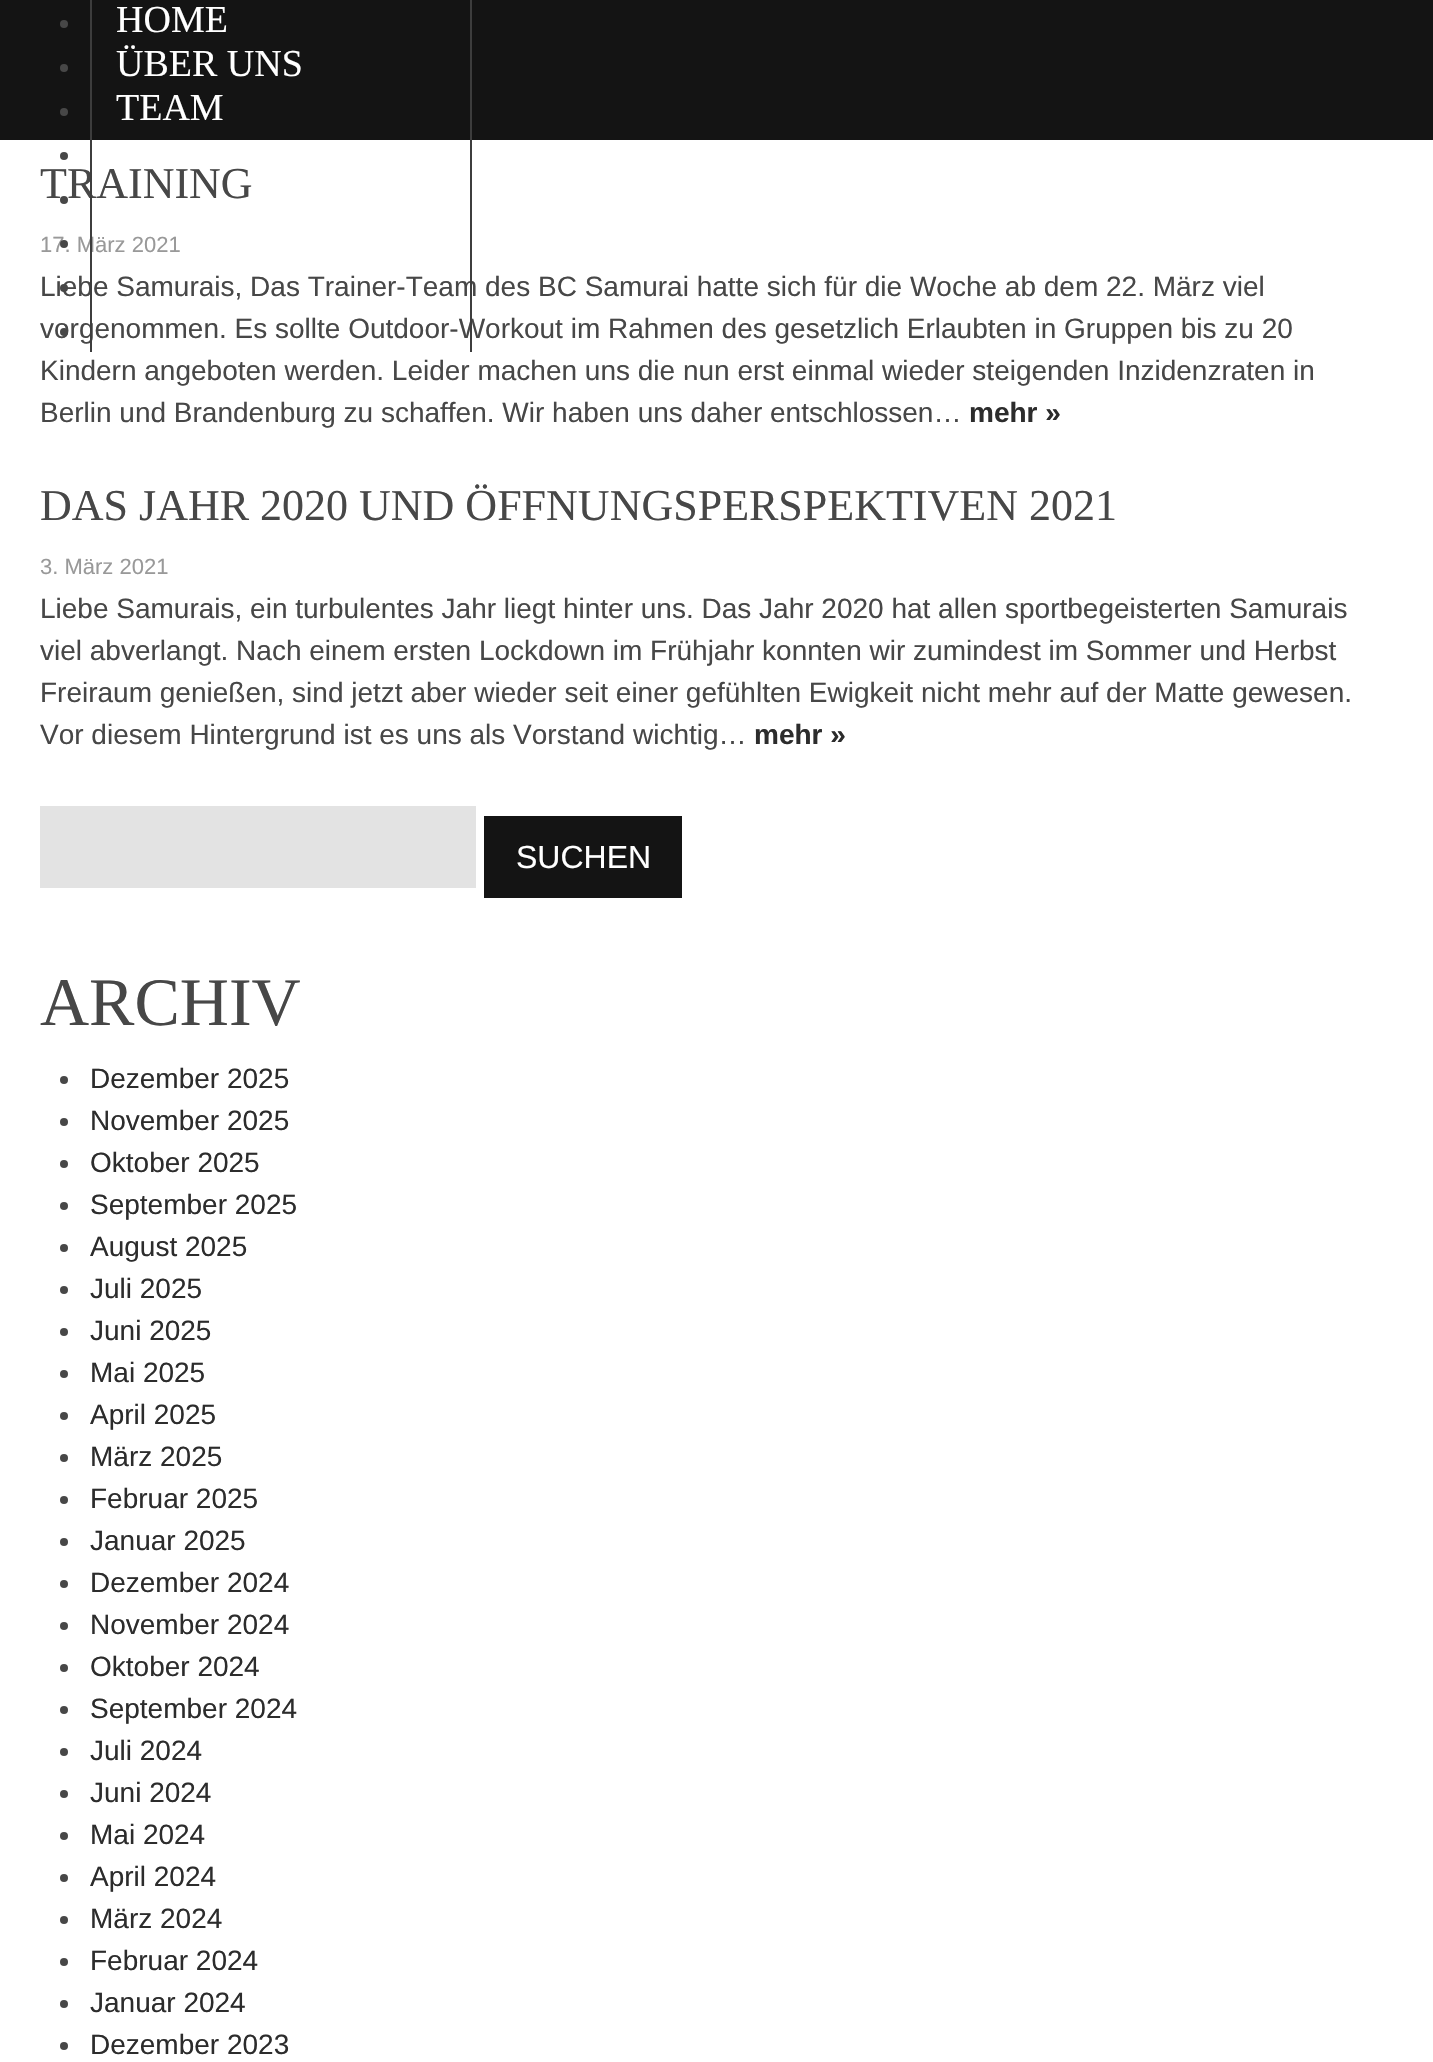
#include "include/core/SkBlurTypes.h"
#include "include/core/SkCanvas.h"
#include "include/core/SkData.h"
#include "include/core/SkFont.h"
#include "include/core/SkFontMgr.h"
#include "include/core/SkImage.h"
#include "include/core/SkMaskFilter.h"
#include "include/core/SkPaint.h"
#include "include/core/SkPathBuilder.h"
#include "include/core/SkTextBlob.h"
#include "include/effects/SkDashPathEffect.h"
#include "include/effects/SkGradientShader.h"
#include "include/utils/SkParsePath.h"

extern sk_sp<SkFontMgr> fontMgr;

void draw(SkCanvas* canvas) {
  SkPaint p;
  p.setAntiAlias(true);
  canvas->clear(SK_ColorWHITE);
  p.setColor(SkColorSetRGB(20, 20, 20));
  canvas->drawRect(SkRect::MakeLTRB(0, 0, 1433, 140), p);
  p.setColor(SkColorSetRGB(71, 71, 71));
  canvas->drawCircle(64, 24, 4, p);
  canvas->drawCircle(64, 68, 4, p);
  canvas->drawCircle(64, 112, 4, p);
  canvas->drawCircle(64, 156, 4, p);
  canvas->drawCircle(64, 200, 4, p);
  canvas->drawCircle(64, 288, 4, p);
  canvas->drawCircle(64, 332, 4, p);
  p.setColor(SkColorSetRGB(227, 227, 227));
  canvas->drawRect(SkRect::MakeLTRB(40, 806, 476, 888), p);
  p.setColor(SkColorSetRGB(20, 20, 20));
  canvas->drawRect(SkRect::MakeLTRB(484, 816, 682, 898), p);
  p.setColor(SkColorSetRGB(71, 71, 71));
  canvas->drawCircle(64, 1080, 4, p);
  canvas->drawCircle(64, 1122, 4, p);
  canvas->drawCircle(64, 1164, 4, p);
  canvas->drawCircle(64, 1206, 4, p);
  canvas->drawCircle(64, 1248, 4, p);
  canvas->drawCircle(64, 1290, 4, p);
  canvas->drawCircle(64, 1332, 4, p);
  canvas->drawCircle(64, 1374, 4, p);
  canvas->drawCircle(64, 1416, 4, p);
  canvas->drawCircle(64, 1458, 4, p);
  canvas->drawCircle(64, 1500, 4, p);
  canvas->drawCircle(64, 1542, 4, p);
  canvas->drawCircle(64, 1584, 4, p);
  canvas->drawCircle(64, 1626, 4, p);
  canvas->drawCircle(64, 1668, 4, p);
  canvas->drawCircle(64, 1710, 4, p);
  canvas->drawCircle(64, 1752, 4, p);
  canvas->drawCircle(64, 1794, 4, p);
  canvas->drawCircle(64, 1836, 4, p);
  canvas->drawCircle(64, 1878, 4, p);
  canvas->drawCircle(64, 1920, 4, p);
  canvas->drawCircle(64, 1962, 4, p);
  canvas->drawCircle(64, 2004, 4, p);
  canvas->drawCircle(64, 2046, 4, p);
  SkFont font1(fontMgr->matchFamilyStyle("Liberation Serif", SkFontStyle::Normal()), 38);
  font1.setSubpixel(true);
  p.setColor(SK_ColorWHITE);
  canvas->drawString("HOME", 116, 32, font1, p);
  canvas->drawString("ÜBER UNS", 116, 76, font1, p);
  canvas->drawString("TEAM", 116, 120, font1, p);
  SkFont font2(fontMgr->matchFamilyStyle("Liberation Serif", SkFontStyle::Normal()), 44);
  font2.setSubpixel(true);
  p.setColor(SkColorSetRGB(71, 71, 71));
  canvas->drawString("TRAINING", 40, 198, font2, p);
  SkFont font3(fontMgr->matchFamilyStyle("Liberation Sans", SkFontStyle::Normal()), 22);
  font3.setSubpixel(true);
  p.setColor(SkColorSetRGB(153, 153, 153));
  canvas->drawString("17. März 2021", 40, 252, font3, p);
  p.setColor(SkColorSetRGB(71, 71, 71));
  canvas->drawCircle(64, 244, 4, p);
  SkFont font4(fontMgr->matchFamilyStyle("Liberation Sans", SkFontStyle::Normal()), 28);
  font4.setSubpixel(true);
  canvas->drawString("Liebe Samurais, Das Trainer-Team des BC Samurai hatte sich für die Woche ab dem 22. März viel", 40, 296, font4, p);
  canvas->drawString("vorgenommen. Es sollte Outdoor-Workout im Rahmen des gesetzlich Erlaubten in Gruppen bis zu 20", 40, 338, font4, p);
  p.setColor(SkColorSetRGB(61, 61, 61));
  canvas->drawRect(SkRect::MakeLTRB(90, 0, 92, 352), p);
  canvas->drawRect(SkRect::MakeLTRB(470, 0, 472, 352), p);
  p.setColor(SkColorSetRGB(71, 71, 71));
  canvas->drawString("Kindern angeboten werden. Leider machen uns die nun erst einmal wieder steigenden Inzidenzraten in", 40, 380, font4, p);
  canvas->drawString("Berlin und Brandenburg zu schaffen. Wir haben uns daher entschlossen…", 40, 422, font4, p);
  SkFont font5(fontMgr->matchFamilyStyle("Liberation Sans", SkFontStyle::Bold()), 28);
  font5.setSubpixel(true);
  p.setColor(SkColorSetRGB(44, 44, 44));
  canvas->drawString("mehr »", 969, 422, font5, p);
  p.setColor(SkColorSetRGB(71, 71, 71));
  canvas->drawString("DAS JAHR 2020 UND ÖFFNUNGSPERSPEKTIVEN 2021", 40, 520, font2, p);
  p.setColor(SkColorSetRGB(153, 153, 153));
  canvas->drawString("3. März 2021", 40, 574, font3, p);
  p.setColor(SkColorSetRGB(71, 71, 71));
  canvas->drawString("Liebe Samurais, ein turbulentes Jahr liegt hinter uns. Das Jahr 2020 hat allen sportbegeisterten Samurais", 40, 618, font4, p);
  canvas->drawString("viel abverlangt. Nach einem ersten Lockdown im Frühjahr konnten wir zumindest im Sommer und Herbst", 40, 660, font4, p);
  canvas->drawString("Freiraum genießen, sind jetzt aber wieder seit einer gefühlten Ewigkeit nicht mehr auf der Matte gewesen.", 40, 702, font4, p);
  canvas->drawString("Vor diesem Hintergrund ist es uns als Vorstand wichtig…", 40, 744, font4, p);
  p.setColor(SkColorSetRGB(44, 44, 44));
  canvas->drawString("mehr »", 754, 744, font5, p);
  SkFont font6(fontMgr->matchFamilyStyle("Liberation Sans", SkFontStyle::Normal()), 32);
  font6.setSubpixel(true);
  p.setColor(SK_ColorWHITE);
  canvas->drawString("SUCHEN", 516, 868, font6, p);
  SkFont font7(fontMgr->matchFamilyStyle("Liberation Serif", SkFontStyle::Normal()), 68);
  font7.setSubpixel(true);
  p.setColor(SkColorSetRGB(71, 71, 71));
  canvas->drawString("ARCHIV", 40, 1025, font7, p);
  p.setColor(SkColorSetRGB(44, 44, 44));
  canvas->drawString("Dezember 2025", 90, 1088, font4, p);
  canvas->drawString("November 2025", 90, 1130, font4, p);
  canvas->drawString("Oktober 2025", 90, 1172, font4, p);
  canvas->drawString("September 2025", 90, 1214, font4, p);
  canvas->drawString("August 2025", 90, 1256, font4, p);
  canvas->drawString("Juli 2025", 90, 1298, font4, p);
  canvas->drawString("Juni 2025", 90, 1340, font4, p);
  canvas->drawString("Mai 2025", 90, 1382, font4, p);
  canvas->drawString("April 2025", 90, 1424, font4, p);
  canvas->drawString("März 2025", 90, 1466, font4, p);
  canvas->drawString("Februar 2025", 90, 1508, font4, p);
  canvas->drawString("Januar 2025", 90, 1550, font4, p);
  canvas->drawString("Dezember 2024", 90, 1592, font4, p);
  canvas->drawString("November 2024", 90, 1634, font4, p);
  canvas->drawString("Oktober 2024", 90, 1676, font4, p);
  canvas->drawString("September 2024", 90, 1718, font4, p);
  canvas->drawString("Juli 2024", 90, 1760, font4, p);
  canvas->drawString("Juni 2024", 90, 1802, font4, p);
  canvas->drawString("Mai 2024", 90, 1844, font4, p);
  canvas->drawString("April 2024", 90, 1886, font4, p);
  canvas->drawString("März 2024", 90, 1928, font4, p);
  canvas->drawString("Februar 2024", 90, 1970, font4, p);
  canvas->drawString("Januar 2024", 90, 2012, font4, p);
  canvas->drawString("Dezember 2023", 90, 2054, font4, p);
}
